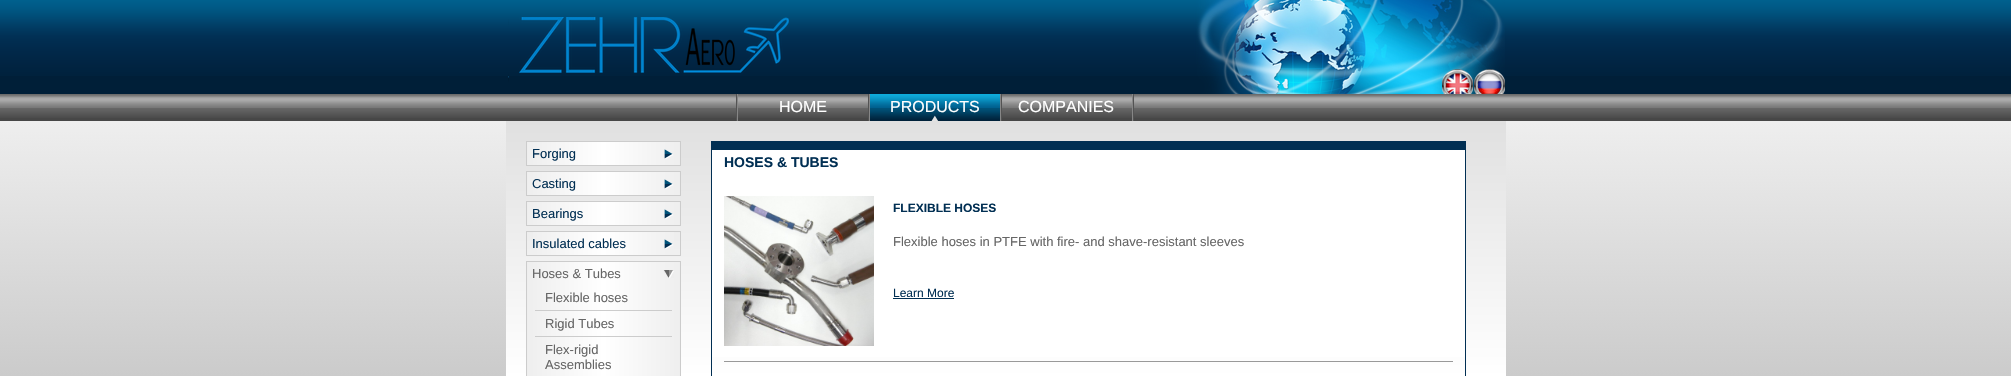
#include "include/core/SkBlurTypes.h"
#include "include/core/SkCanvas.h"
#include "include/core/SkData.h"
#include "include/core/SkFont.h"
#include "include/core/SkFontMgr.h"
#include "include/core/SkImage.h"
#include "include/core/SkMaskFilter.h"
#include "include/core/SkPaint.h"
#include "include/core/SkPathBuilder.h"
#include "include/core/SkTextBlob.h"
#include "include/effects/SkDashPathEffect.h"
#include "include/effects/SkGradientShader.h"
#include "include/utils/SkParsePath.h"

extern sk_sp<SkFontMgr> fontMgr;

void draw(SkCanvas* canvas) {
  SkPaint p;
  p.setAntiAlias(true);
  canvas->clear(SK_ColorWHITE);
  canvas->drawImageRect(SkImages::DeferredFromEncodedData(SkData::MakeFromFileName("images/1.png")), SkRect::MakeLTRB(0, 121, 2011, 376), SkSamplingOptions());
  p.setColor(SkColorSetRGB(0, 31, 56));
  canvas->drawRect(SkRect::MakeLTRB(0, 76, 2011, 94), p);
  canvas->drawImageRect(SkImages::DeferredFromEncodedData(SkData::MakeFromFileName("images/2.png")), SkRect::MakeLTRB(0, 0, 2011, 76), SkSamplingOptions());
  canvas->drawImageRect(SkImages::DeferredFromEncodedData(SkData::MakeFromFileName("images/3.png")), SkRect::MakeLTRB(508, 0, 1505, 94), SkSamplingOptions());
  canvas->drawImageRect(SkImages::DeferredFromEncodedData(SkData::MakeFromFileName("images/4.png")), SkRect::MakeLTRB(1442, 69, 1473, 94), SkSamplingOptions());
  canvas->drawImageRect(SkImages::DeferredFromEncodedData(SkData::MakeFromFileName("images/5.png")), SkRect::MakeLTRB(1474, 69, 1505, 94), SkSamplingOptions());
  p.setColor(SkColorSetRGB(71, 71, 71));
  canvas->drawRect(SkRect::MakeLTRB(0, 118, 2011, 121), p);
  canvas->drawImageRect(SkImages::DeferredFromEncodedData(SkData::MakeFromFileName("images/6.png")), SkRect::MakeLTRB(0, 94, 2011, 118), SkSamplingOptions());
  p.setColor(SkColorSetRGB(83, 83, 83));
  canvas->drawRect(SkRect::MakeLTRB(736, 94, 737, 121), p);
  p.setColor(SkColorSetRGB(134, 134, 134));
  canvas->drawRect(SkRect::MakeLTRB(737, 94, 738, 121), p);
  p.setColor(SkColorSetRGB(83, 83, 83));
  canvas->drawRect(SkRect::MakeLTRB(1001, 94, 1002, 121), p);
  canvas->drawRect(SkRect::MakeLTRB(868, 94, 869, 121), p);
  canvas->drawImageRect(SkImages::DeferredFromEncodedData(SkData::MakeFromFileName("images/7.png")), SkRect::MakeLTRB(870, 94, 1000, 121), SkSamplingOptions());
  p.setColor(SkColorSetRGB(134, 134, 134));
  canvas->drawRect(SkRect::MakeLTRB(1000, 94, 1001, 121), p);
  canvas->drawRect(SkRect::MakeLTRB(869, 94, 870, 121), p);
  p.setColor(SkColorSetRGB(83, 83, 83));
  canvas->drawRect(SkRect::MakeLTRB(1133, 94, 1134, 121), p);
  p.setColor(SkColorSetRGB(134, 134, 134));
  canvas->drawRect(SkRect::MakeLTRB(1132, 94, 1133, 121), p);
  {
    const SkColor colors[] = {SkColorSetRGB(224, 224, 224), SK_ColorWHITE};
    const float stops[] = {0, 0.29f};
    const SkPoint ends[] = {{1006, 121}, {1006, 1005}};
    p.setShader(SkGradientShader::MakeLinear(ends, colors, stops, 2, SkTileMode::kClamp));
    p.setAlpha(255);
  }
  canvas->drawRect(SkRect::MakeLTRB(506, 121, 1506, 376), p);
  {
    const SkColor colors[] = {SkColorSetRGB(238, 238, 238), SK_ColorWHITE, SkColorSetRGB(238, 238, 238)};
    const float stops[] = {0, 0.5f, 1};
    const SkPoint ends[] = {{526, 154}, {681, 154}};
    p.setShader(SkGradientShader::MakeLinear(ends, colors, stops, 3, SkTileMode::kClamp));
    p.setAlpha(255);
  }
  canvas->drawRect(SkRect::MakeLTRB(527, 142, 680, 165), p);
  canvas->drawImageRect(SkImages::DeferredFromEncodedData(SkData::MakeFromFileName("images/8.png")), SkRect::MakeLTRB(664, 149, 673, 159), SkSamplingOptions());
  p.setStyle(SkPaint::kStroke_Style);
  p.setStrokeWidth(1);
  p.setShader(nullptr);
  p.setColor(SkColorSetRGB(204, 204, 204));
  canvas->drawRect(SkRect::MakeLTRB(526.5f, 141.5f, 680.5f, 165.5f), p);
  p.setStyle(SkPaint::kFill_Style);
  {
    const SkColor colors[] = {SkColorSetRGB(238, 238, 238), SK_ColorWHITE, SkColorSetRGB(238, 238, 238)};
    const float stops[] = {0, 0.5f, 1};
    const SkPoint ends[] = {{526, 184}, {681, 184}};
    p.setShader(SkGradientShader::MakeLinear(ends, colors, stops, 3, SkTileMode::kClamp));
    p.setAlpha(255);
  }
  canvas->drawRect(SkRect::MakeLTRB(527, 172, 680, 195), p);
  canvas->drawImageRect(SkImages::DeferredFromEncodedData(SkData::MakeFromFileName("images/8.png")), SkRect::MakeLTRB(664, 179, 673, 189), SkSamplingOptions());
  p.setStyle(SkPaint::kStroke_Style);
  p.setShader(nullptr);
  p.setColor(SkColorSetRGB(204, 204, 204));
  canvas->drawRect(SkRect::MakeLTRB(526.5f, 171.5f, 680.5f, 195.5f), p);
  p.setStyle(SkPaint::kFill_Style);
  {
    const SkColor colors[] = {SkColorSetRGB(238, 238, 238), SK_ColorWHITE, SkColorSetRGB(238, 238, 238)};
    const float stops[] = {0, 0.5f, 1};
    const SkPoint ends[] = {{526, 214}, {681, 214}};
    p.setShader(SkGradientShader::MakeLinear(ends, colors, stops, 3, SkTileMode::kClamp));
    p.setAlpha(255);
  }
  canvas->drawRect(SkRect::MakeLTRB(527, 202, 680, 225), p);
  canvas->drawImageRect(SkImages::DeferredFromEncodedData(SkData::MakeFromFileName("images/8.png")), SkRect::MakeLTRB(664, 209, 673, 219), SkSamplingOptions());
  p.setStyle(SkPaint::kStroke_Style);
  p.setShader(nullptr);
  p.setColor(SkColorSetRGB(204, 204, 204));
  canvas->drawRect(SkRect::MakeLTRB(526.5f, 201.5f, 680.5f, 225.5f), p);
  p.setStyle(SkPaint::kFill_Style);
  {
    const SkColor colors[] = {SkColorSetRGB(238, 238, 238), SK_ColorWHITE, SkColorSetRGB(238, 238, 238)};
    const float stops[] = {0, 0.5f, 1};
    const SkPoint ends[] = {{526, 244}, {681, 244}};
    p.setShader(SkGradientShader::MakeLinear(ends, colors, stops, 3, SkTileMode::kClamp));
    p.setAlpha(255);
  }
  canvas->drawRect(SkRect::MakeLTRB(533, 232, 674, 255), p);
  canvas->drawImageRect(SkImages::DeferredFromEncodedData(SkData::MakeFromFileName("images/8.png")), SkRect::MakeLTRB(664, 239, 673, 249), SkSamplingOptions());
  p.setStyle(SkPaint::kStroke_Style);
  p.setShader(nullptr);
  p.setColor(SkColorSetRGB(204, 204, 204));
  canvas->drawRect(SkRect::MakeLTRB(526.5f, 231.5f, 680.5f, 255.5f), p);
  p.setStyle(SkPaint::kFill_Style);
  {
    const SkColor colors[] = {SkColorSetRGB(238, 238, 238), SK_ColorWHITE, SkColorSetRGB(238, 238, 238)};
    const float stops[] = {0, 0.5f, 1};
    const SkPoint ends[] = {{526, 320}, {681, 320}};
    p.setShader(SkGradientShader::MakeLinear(ends, colors, stops, 3, SkTileMode::kClamp));
    p.setAlpha(255);
  }
  canvas->drawRect(SkRect::MakeLTRB(527, 262, 680, 376), p);
  canvas->drawImageRect(SkImages::DeferredFromEncodedData(SkData::MakeFromFileName("images/9.png")), SkRect::MakeLTRB(663, 270, 674, 278), SkSamplingOptions());
  p.setShader(nullptr);
  p.setColor(SkColorSetRGB(204, 204, 204));
  canvas->drawRect(SkRect::MakeLTRB(526, 261, 681, 262), p);
  canvas->drawRect(SkRect::MakeLTRB(680, 261, 681, 376), p);
  canvas->drawRect(SkRect::MakeLTRB(526, 261, 527, 376), p);
  canvas->drawRect(SkRect::MakeLTRB(535, 310, 672, 311), p);
  canvas->drawRect(SkRect::MakeLTRB(535, 336, 672, 337), p);
  p.setColor(SK_ColorWHITE);
  canvas->drawRect(SkRect::MakeLTRB(712, 150, 1465, 357), p);
  p.setStyle(SkPaint::kStroke_Style);
  p.setColor(SkColorSetRGB(1, 47, 83));
  canvas->drawRect(SkRect::MakeLTRB(711.5f, 141.5f, 1465.5f, 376.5f), p);
  p.setStyle(SkPaint::kFill_Style);
  canvas->drawRect(SkRect::MakeLTRB(711, 142, 1466, 150), p);
  p.setColor(SkColorSetRGB(153, 153, 153));
  canvas->drawRect(SkRect::MakeLTRB(724, 361, 1453, 362), p);
  canvas->drawImageRect(SkImages::DeferredFromEncodedData(SkData::MakeFromFileName("images/10.png")), SkRect::MakeLTRB(724, 196, 874, 346), SkSamplingOptions());
  p.setColor(SkColorSetRGB(1, 47, 83));
  canvas->drawRect(SkRect::MakeLTRB(893, 298, 954, 299), p);
  SkFont font1(fontMgr->matchFamilyStyle("Liberation Sans", SkFontStyle::Normal()), 16);
  font1.setSubpixel(true);
  p.setColor(SK_ColorWHITE);
  canvas->drawString("HOME", 779, 112, font1, p);
  canvas->drawString("PRODUCTS", 890, 112, font1, p);
  canvas->drawString("COMPANIES", 1018, 112, font1, p);
  SkFont font2(fontMgr->matchFamilyStyle("Liberation Sans", SkFontStyle::Normal()), 13);
  font2.setSubpixel(true);
  p.setColor(SkColorSetRGB(1, 47, 83));
  canvas->drawString("Forging", 532, 158, font2, p);
  canvas->drawString("Casting", 532, 188, font2, p);
  canvas->drawString("Bearings", 532, 218, font2, p);
  canvas->drawString("Insulated cables", 532, 248, font2, p);
  p.setColor(SkColorSetRGB(102, 102, 102));
  canvas->drawString("Hoses & Tubes", 532, 278, font2, p);
  canvas->drawString("Flexible hoses", 545, 302, font2, p);
  canvas->drawString("Rigid Tubes", 545, 328, font2, p);
  canvas->drawString("Flex-rigid", 545, 354, font2, p);
  canvas->drawString("Assemblies", 545, 369, font2, p);
  SkFont font3(fontMgr->matchFamilyStyle("Liberation Sans", SkFontStyle::Bold()), 14);
  font3.setSubpixel(true);
  p.setColor(SkColorSetRGB(1, 47, 83));
  canvas->drawString("HOSES & TUBES", 724, 167, font3, p);
  SkFont font4(fontMgr->matchFamilyStyle("Liberation Sans", SkFontStyle::Bold()), 12);
  font4.setSubpixel(true);
  canvas->drawString("FLEXIBLE HOSES", 893, 212, font4, p);
  p.setColor(SkColorSetRGB(102, 102, 102));
  canvas->drawString("Flexible hoses in PTFE with fire- and shave-resistant sleeves", 893, 246, font2, p);
  SkFont font5(fontMgr->matchFamilyStyle("Liberation Sans", SkFontStyle::Normal()), 12);
  font5.setSubpixel(true);
  p.setColor(SkColorSetRGB(1, 47, 83));
  canvas->drawString("Learn More", 893, 297, font5, p);
}
